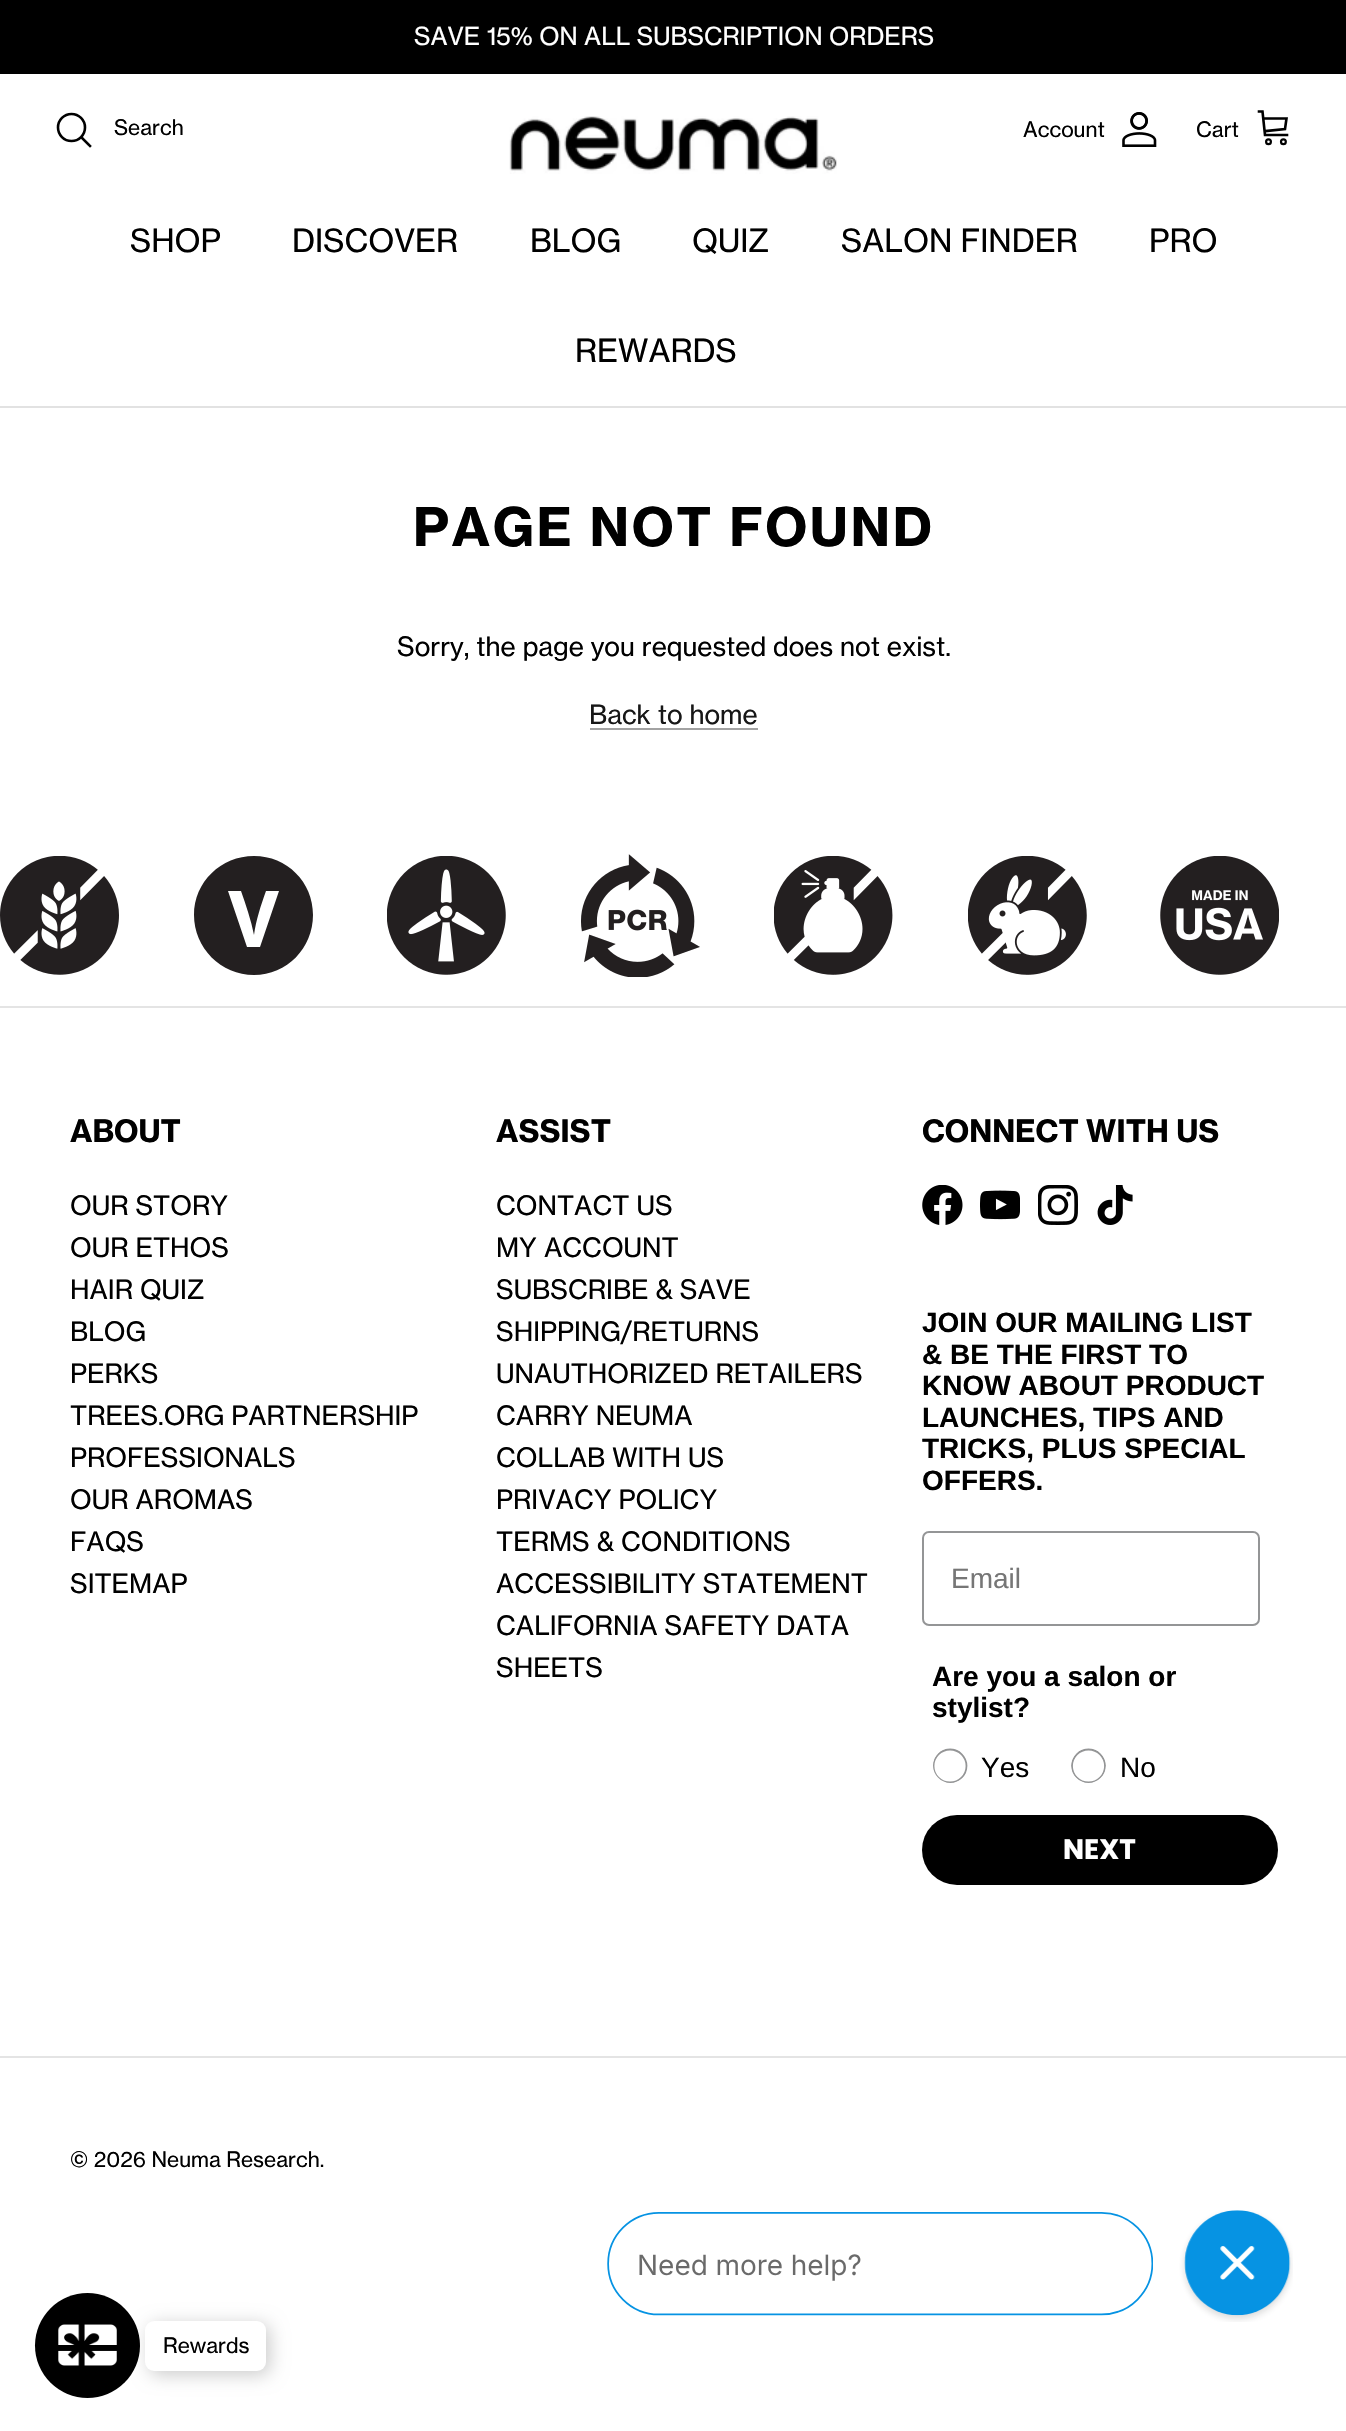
#include "include/core/SkBlurTypes.h"
#include "include/core/SkCanvas.h"
#include "include/core/SkData.h"
#include "include/core/SkFont.h"
#include "include/core/SkFontMgr.h"
#include "include/core/SkImage.h"
#include "include/core/SkMaskFilter.h"
#include "include/core/SkPaint.h"
#include "include/core/SkPathBuilder.h"
#include "include/core/SkTextBlob.h"
#include "include/effects/SkDashPathEffect.h"
#include "include/effects/SkGradientShader.h"
#include "include/utils/SkParsePath.h"

extern sk_sp<SkFontMgr> fontMgr;

void draw(SkCanvas* canvas) {
  SkPaint p;
  p.setAntiAlias(true);
  auto spacedText = [&](const char* s, float x, float y, const SkFont& font, const SkPaint& ink, float letter, float word) {
    std::vector<SkGlyphID> glyphs(font.countText(s, strlen(s), SkTextEncoding::kUTF8));
    std::vector<float> xs(glyphs.size());
    font.textToGlyphs(s, strlen(s), SkTextEncoding::kUTF8, glyphs);
    font.getXPos(glyphs, xs, x);
    float extra = 0;
    for (size_t i = 0; i < glyphs.size(); i++) {
      xs[i] += extra;
      extra += letter + word * (glyphs[i] == font.unicharToGlyph(' '));
    }
    canvas->drawTextBlob(SkTextBlob::MakeFromPosHGlyphs(glyphs, xs, y, font), 0, 0, ink);
  };
  canvas->clear(SK_ColorWHITE);
  p.setColor(SK_ColorBLACK);
  canvas->drawRect(SkRect::MakeLTRB(0, 0, 1346, 74), p);
  p.setStyle(SkPaint::kStroke_Style);
  p.setStrokeWidth(2.6f);
  canvas->drawCircle(71.5f, 127.5f, 13.5f, p);
  p.setStrokeCap(SkPaint::kSquare_Cap);
  canvas->drawPath(SkPathBuilder().moveTo(82, 138).lineTo(90, 146).detach(), p);
  canvas->drawImageRect(SkImages::DeferredFromEncodedData(SkData::MakeFromFileName("images/1.png")), SkRect::MakeLTRB(509, 116, 837, 174), SkSamplingOptions());
  canvas->drawImageRect(SkImages::DeferredFromEncodedData(SkData::MakeFromFileName("images/2.png")), SkRect::MakeLTRB(1122, 112, 1157, 147), SkSamplingOptions());
  canvas->drawPath(SkPathBuilder().moveTo(1259, 111.5f).lineTo(1262.5f, 111.5f).lineTo(1265, 135).lineTo(1287, 135).moveTo(1264, 118.5f).lineTo(1286.5f, 118.5f).lineTo(1285, 129).lineTo(1266.5f, 131).detach(), p);
  p.setStrokeWidth(2.2f);
  p.setStrokeCap(SkPaint::kButt_Cap);
  canvas->drawCircle(1268.5f, 141.8f, 2.4f, p);
  canvas->drawCircle(1283.4f, 141.8f, 2.4f, p);
  p.setStyle(SkPaint::kFill_Style);
  p.setColor(SkColorSetRGB(226, 226, 226));
  canvas->drawRect(SkRect::MakeLTRB(0, 406, 1346, 408), p);
  p.setColor(SkColorSetRGB(162, 162, 162));
  canvas->drawRect(SkRect::MakeLTRB(590, 728, 758, 730), p);
  canvas->drawImageRect(SkImages::DeferredFromEncodedData(SkData::MakeFromFileName("images/3.png")), SkRect::MakeLTRB(0, 856, 119, 975), SkSamplingOptions());
  p.setColor(SkColorSetRGB(35, 31, 32));
  canvas->drawPath(SkPathBuilder().moveTo(254, 856).cubicTo(221, 856, 194, 882, 194, 915).cubicTo(194, 948, 221, 975, 254, 975).cubicTo(287, 975, 313, 948, 313, 915).cubicTo(313, 882, 287, 856, 254, 856).close().moveTo(260, 947).lineTo(247, 947).lineTo(228, 891).lineTo(241, 891).cubicTo(246, 905, 251, 920, 254, 935).cubicTo(256, 920, 261, 905, 266, 891).lineTo(279, 891).close().detach(), p);
  canvas->drawImageRect(SkImages::DeferredFromEncodedData(SkData::MakeFromFileName("images/4.png")), SkRect::MakeLTRB(387, 856, 506, 975), SkSamplingOptions());
  canvas->drawImageRect(SkImages::DeferredFromEncodedData(SkData::MakeFromFileName("images/5.png")), SkRect::MakeLTRB(581, 854, 700, 977), SkSamplingOptions());
  canvas->drawImageRect(SkImages::DeferredFromEncodedData(SkData::MakeFromFileName("images/6.png")), SkRect::MakeLTRB(774, 856, 893, 975), SkSamplingOptions());
  canvas->drawImageRect(SkImages::DeferredFromEncodedData(SkData::MakeFromFileName("images/7.png")), SkRect::MakeLTRB(968, 856, 1087, 975), SkSamplingOptions());
  canvas->drawImageRect(SkImages::DeferredFromEncodedData(SkData::MakeFromFileName("images/8.png")), SkRect::MakeLTRB(1160, 856, 1279, 975), SkSamplingOptions());
  p.setColor(SkColorSetRGB(228, 228, 228));
  canvas->drawRect(SkRect::MakeLTRB(0, 1006, 1346, 1008), p);
  canvas->drawImageRect(SkImages::DeferredFromEncodedData(SkData::MakeFromFileName("images/9.png")), SkRect::MakeLTRB(922, 1185, 963, 1225), SkSamplingOptions());
  canvas->drawImageRect(SkImages::DeferredFromEncodedData(SkData::MakeFromFileName("images/10.png")), SkRect::MakeLTRB(980, 1190, 1020, 1220), SkSamplingOptions());
  canvas->drawImageRect(SkImages::DeferredFromEncodedData(SkData::MakeFromFileName("images/11.png")), SkRect::MakeLTRB(1038, 1185, 1078, 1225), SkSamplingOptions());
  canvas->drawImageRect(SkImages::DeferredFromEncodedData(SkData::MakeFromFileName("images/12.png")), SkRect::MakeLTRB(1097, 1185, 1133, 1225), SkSamplingOptions());
  p.setStyle(SkPaint::kStroke_Style);
  p.setStrokeWidth(2);
  p.setColor(SkColorSetRGB(148, 149, 150));
  canvas->drawRoundRect(SkRect::MakeLTRB(923, 1532, 1259, 1625), 6, 6, p);
  canvas->save();
  canvas->clipPath(SkPathBuilder().moveTo(950.5f, 1748).cubicTo(960, 1748, 968, 1756, 968, 1765.5f).cubicTo(968, 1775, 960, 1783, 950.5f, 1783).cubicTo(941, 1783, 933, 1775, 933, 1765.5f).cubicTo(933, 1756, 941, 1748, 950.5f, 1748).close().detach(), true);
  p.setStrokeWidth(1.8f);
  canvas->drawCircle(950, 1766, 16.5f, p);
  canvas->restore();
  canvas->save();
  canvas->clipPath(SkPathBuilder().moveTo(1088.5f, 1748).cubicTo(1098, 1748, 1106, 1756, 1106, 1765.5f).cubicTo(1106, 1775, 1098, 1783, 1088.5f, 1783).cubicTo(1079, 1783, 1071, 1775, 1071, 1765.5f).cubicTo(1071, 1756, 1079, 1748, 1088.5f, 1748).close().detach(), true);
  canvas->drawCircle(1088.5f, 1766, 16.5f, p);
  canvas->restore();
  p.setStyle(SkPaint::kFill_Style);
  p.setColor(SK_ColorBLACK);
  canvas->drawRoundRect(SkRect::MakeLTRB(922, 1815, 1278, 1885), 35, 35, p);
  p.setColor(SkColorSetRGB(228, 228, 228));
  canvas->drawRect(SkRect::MakeLTRB(0, 2056, 1346, 2058), p);
  canvas->drawImageRect(SkImages::DeferredFromEncodedData(SkData::MakeFromFileName("images/13.png")), SkRect::MakeLTRB(607, 2210, 1293, 2322), SkSamplingOptions());
  p.setColor(SK_ColorBLACK);
  canvas->drawCircle(87.5f, 2345.5f, 52.5f, p);
  canvas->drawImageRect(SkImages::DeferredFromEncodedData(SkData::MakeFromFileName("images/14.png")), SkRect::MakeLTRB(58, 2324, 117, 2366), SkSamplingOptions());
  p.setColor(SkColorSetARGB(51, 0, 0, 0));
  p.setMaskFilter(SkMaskFilter::MakeBlur(kNormal_SkBlurStyle, 9));
  canvas->drawRoundRect(SkRect::MakeLTRB(149, 2324, 270, 2375), 9, 9, p);
  p.setMaskFilter(nullptr);
  p.setColor(SK_ColorWHITE);
  canvas->drawRoundRect(SkRect::MakeLTRB(145, 2321, 266, 2371), 9, 9, p);
  SkFont font1(fontMgr->matchFamilyStyle("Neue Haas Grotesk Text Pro", SkFontStyle::Normal()), 24.5f);
  font1.setSubpixel(true);
  canvas->drawString("SAVE 15% ON ALL SUBSCRIPTION ORDERS", 414, 45, font1, p);
  SkFont font2(fontMgr->matchFamilyStyle("Neue Haas Grotesk Text Pro", SkFontStyle::Normal()), 21);
  font2.setSubpixel(true);
  p.setColor(SK_ColorBLACK);
  canvas->drawString("Search", 114, 135, font2, p);
  canvas->drawString("Account", 1023, 137, font2, p);
  canvas->drawString("Cart", 1196, 137, font2, p);
  SkFont font3(fontMgr->matchFamilyStyle("Neue Haas Grotesk Text Pro", SkFontStyle::Normal()), 31.5f);
  font3.setSubpixel(true);
  canvas->drawString("SHOP", 130, 252, font3, p);
  canvas->drawString("DISCOVER", 292, 252, font3, p);
  canvas->drawString("BLOG", 530, 252, font3, p);
  canvas->drawString("QUIZ", 692, 252, font3, p);
  canvas->drawString("SALON FINDER", 841, 252, font3, p);
  canvas->drawString("PRO", 1149, 252, font3, p);
  canvas->drawString("REWARDS", 575, 362, font3, p);
  SkFont font4(fontMgr->matchFamilyStyle("Neue Haas Grotesk Text Pro", SkFontStyle::Bold()), 52.5f);
  font4.setSubpixel(true);
  spacedText("PAGE NOT FOUND", 413, 546, font4, p, 2.6f, 0);
  SkFont font5(fontMgr->matchFamilyStyle("Neue Haas Grotesk Text Pro", SkFontStyle::Normal()), 26.25f);
  font5.setSubpixel(true);
  canvas->drawString("Sorry, the page you requested does not exist.", 397, 656, font5, p);
  p.setColor(SkColorSetRGB(23, 23, 23));
  canvas->drawString("Back to home", 589, 724, font5, p);
  SkFont font6(fontMgr->matchFamilyStyle("Neue Haas Grotesk Text Pro", SkFontStyle::Bold()), 30.5f);
  font6.setSubpixel(true);
  p.setColor(SK_ColorBLACK);
  canvas->drawString("ABOUT", 70, 1142, font6, p);
  canvas->drawString("OUR STORY", 70, 1215, font5, p);
  canvas->drawString("OUR ETHOS", 70, 1257, font5, p);
  canvas->drawString("HAIR QUIZ", 70, 1299, font5, p);
  canvas->drawString("BLOG", 70, 1341, font5, p);
  canvas->drawString("PERKS", 70, 1383, font5, p);
  canvas->drawString("TREES.ORG PARTNERSHIP", 70, 1425, font5, p);
  canvas->drawString("PROFESSIONALS", 70, 1467, font5, p);
  canvas->drawString("OUR AROMAS", 70, 1509, font5, p);
  canvas->drawString("FAQS", 70, 1551, font5, p);
  canvas->drawString("SITEMAP", 70, 1593, font5, p);
  canvas->drawString("ASSIST", 496, 1142, font6, p);
  canvas->drawString("CONTACT US", 496, 1215, font5, p);
  canvas->drawString("MY ACCOUNT", 496, 1257, font5, p);
  canvas->drawString("SUBSCRIBE & SAVE", 496, 1299, font5, p);
  canvas->drawString("SHIPPING/RETURNS", 496, 1341, font5, p);
  canvas->drawString("UNAUTHORIZED RETAILERS", 496, 1383, font5, p);
  canvas->drawString("CARRY NEUMA", 496, 1425, font5, p);
  canvas->drawString("COLLAB WITH US", 496, 1467, font5, p);
  canvas->drawString("PRIVACY POLICY", 496, 1509, font5, p);
  canvas->drawString("TERMS & CONDITIONS", 496, 1551, font5, p);
  canvas->drawString("ACCESSIBILITY STATEMENT", 496, 1593, font5, p);
  canvas->drawString("CALIFORNIA SAFETY DATA", 496, 1635, font5, p);
  canvas->drawString("SHEETS", 496, 1677, font5, p);
  canvas->drawString("CONNECT WITH US", 922, 1142, font6, p);
  SkFont font7(fontMgr->matchFamilyStyle("Liberation Sans", SkFontStyle::Bold()), 28);
  font7.setSubpixel(true);
  canvas->drawString("JOIN OUR MAILING LIST", 922, 1332, font7, p);
  canvas->drawString("& BE THE FIRST TO", 922, 1364, font7, p);
  canvas->drawString("KNOW ABOUT PRODUCT", 922, 1395, font7, p);
  canvas->drawString("LAUNCHES, TIPS AND", 922, 1427, font7, p);
  canvas->drawString("TRICKS, PLUS SPECIAL", 922, 1458, font7, p);
  canvas->drawString("OFFERS.", 922, 1490, font7, p);
  SkFont font8(fontMgr->matchFamilyStyle("Liberation Sans", SkFontStyle::Normal()), 28);
  font8.setSubpixel(true);
  p.setColor(SkColorSetRGB(118, 118, 118));
  canvas->drawString("Email", 951, 1588, font8, p);
  p.setColor(SK_ColorBLACK);
  canvas->drawString("Are you a salon or", 932, 1686, font7, p);
  canvas->drawString("stylist?", 932, 1717, font7, p);
  canvas->drawString("Yes", 981, 1777, font8, p);
  canvas->drawString("No", 1120, 1777, font8, p);
  SkFont font9(fontMgr->matchFamilyStyle("Poppins", SkFontStyle::Bold()), 28);
  font9.setSubpixel(true);
  p.setColor(SK_ColorWHITE);
  canvas->drawString("NEXT", 1063, 1859, font9, p);
  p.setColor(SK_ColorBLACK);
  canvas->drawString("© 2026 Neuma Research.", 70, 2167, font2, p);
  canvas->drawString("Rewards", 163, 2353, font2, p);
}
